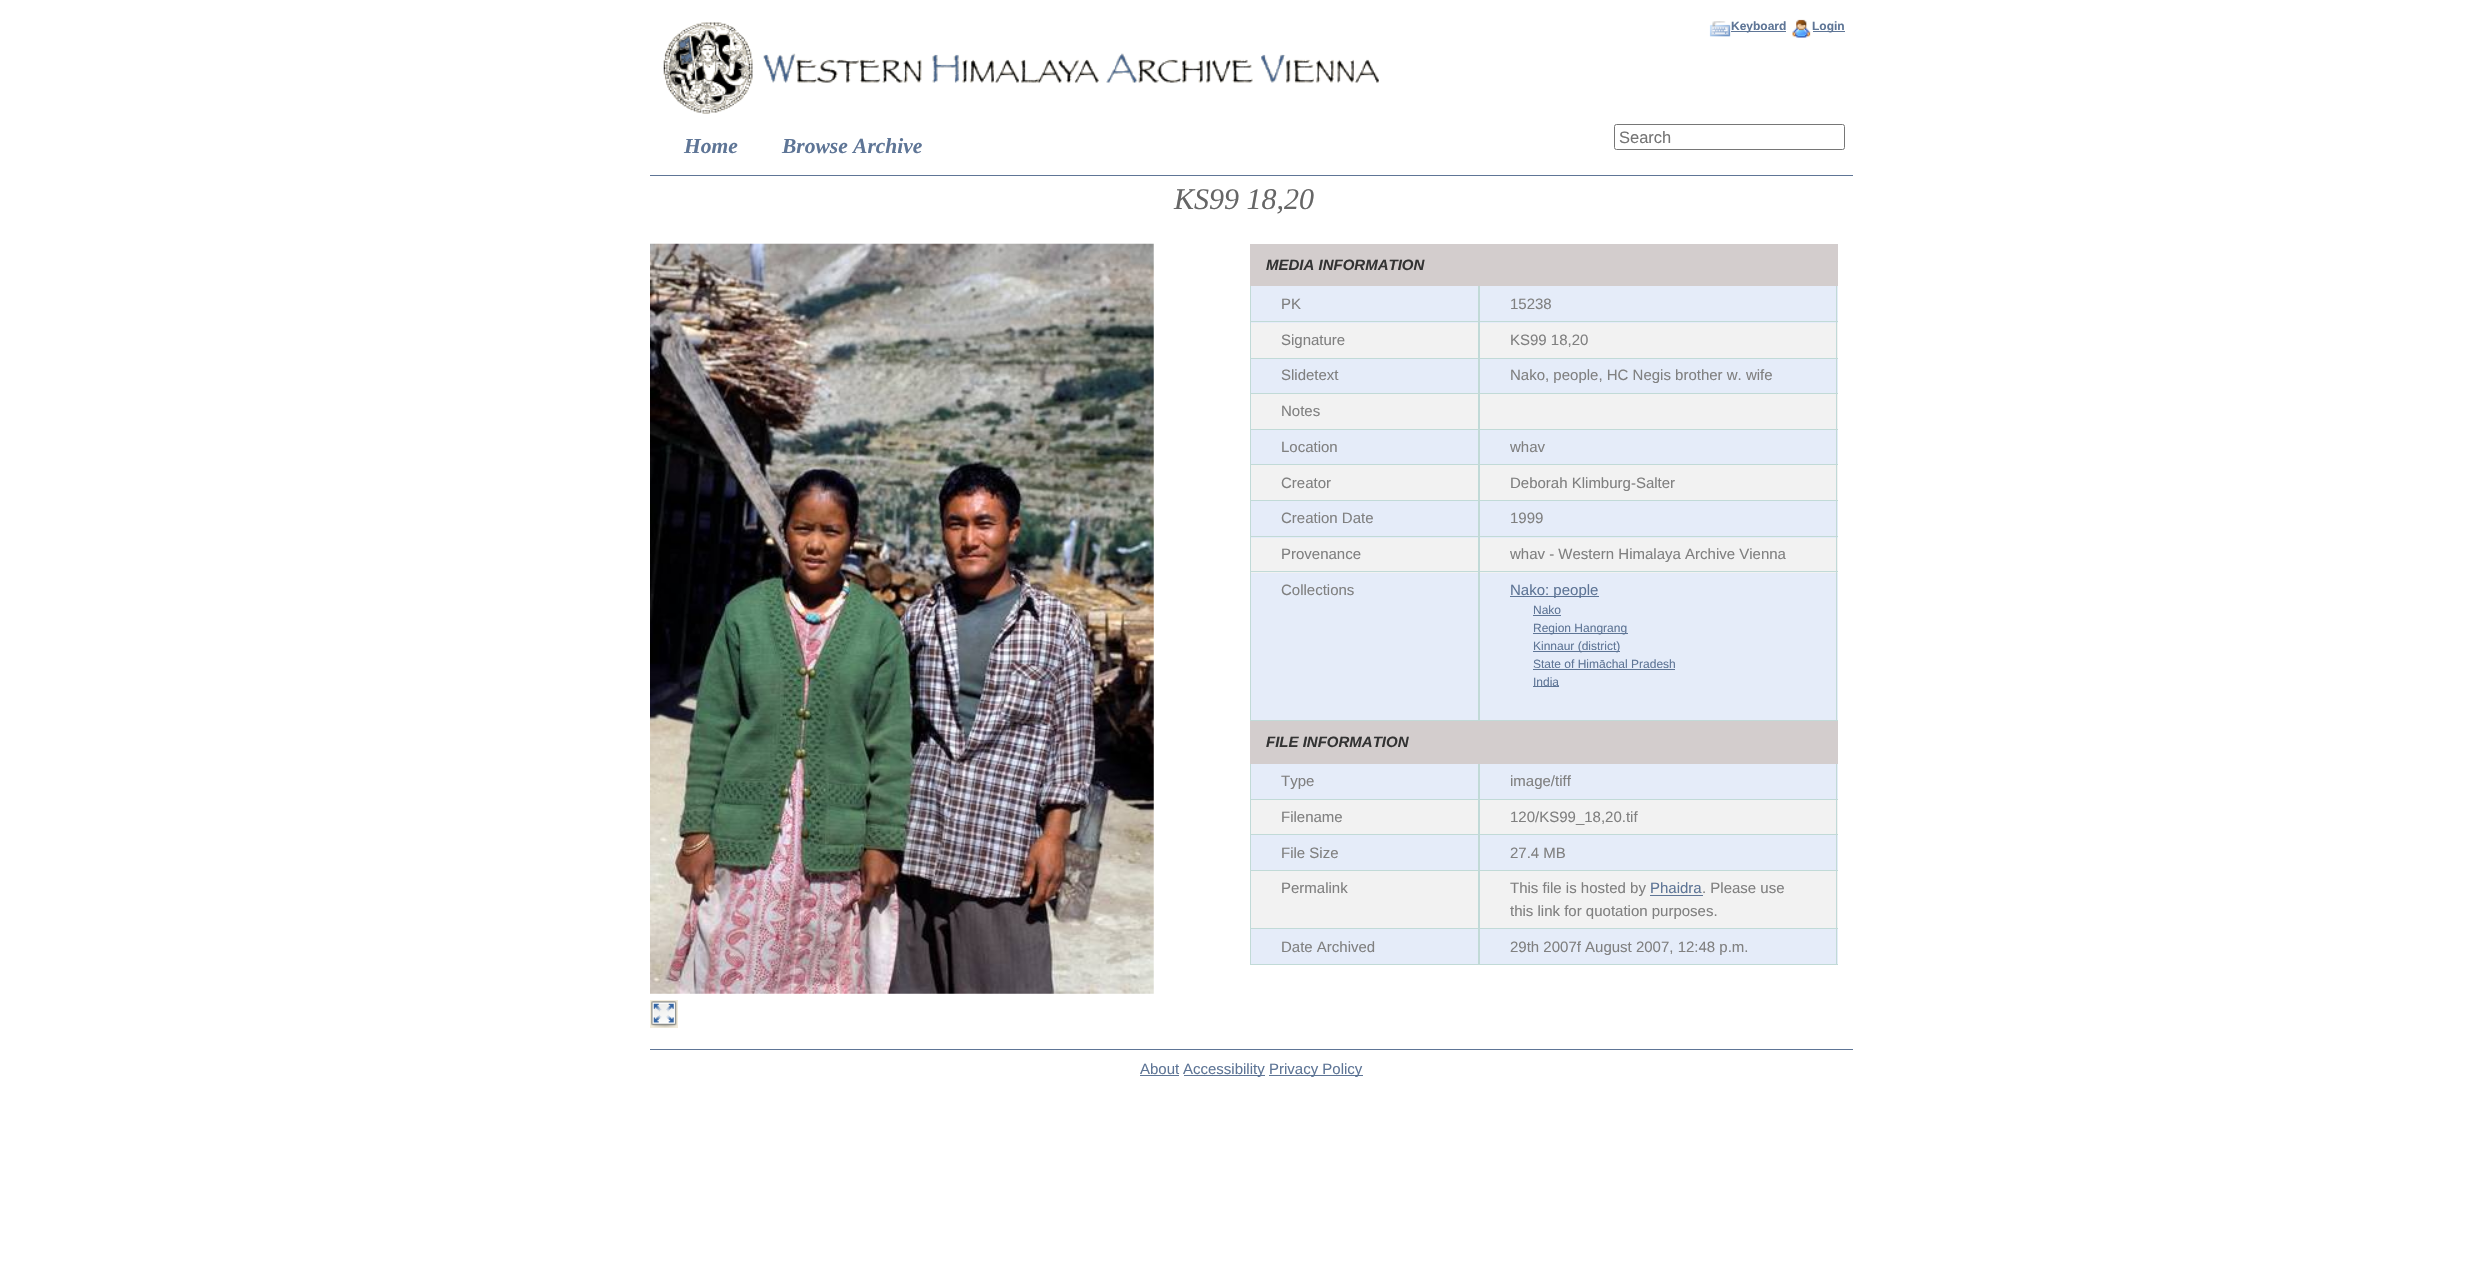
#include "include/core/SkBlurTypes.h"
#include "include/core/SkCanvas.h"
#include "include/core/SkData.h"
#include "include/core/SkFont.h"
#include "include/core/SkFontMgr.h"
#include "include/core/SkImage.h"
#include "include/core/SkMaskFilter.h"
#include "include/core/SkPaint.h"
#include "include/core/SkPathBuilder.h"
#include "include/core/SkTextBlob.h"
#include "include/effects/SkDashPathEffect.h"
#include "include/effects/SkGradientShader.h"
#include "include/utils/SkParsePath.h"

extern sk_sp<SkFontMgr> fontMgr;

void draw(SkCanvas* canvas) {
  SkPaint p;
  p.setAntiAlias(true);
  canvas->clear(SK_ColorWHITE);
  p.setColor(SkColorSetRGB(94, 117, 150));
  canvas->drawRect(SkRect::MakeLTRB(650, 175, 1853, 176), p);
  canvas->drawImageRect(SkImages::DeferredFromEncodedData(SkData::MakeFromFileName("images/1.png")), SkRect::MakeLTRB(663, 22, 1379, 114), SkSamplingOptions());
  canvas->drawImageRect(SkImages::DeferredFromEncodedData(SkData::MakeFromFileName("images/2.png")), SkRect::MakeLTRB(1709, 21, 1731, 37), SkSamplingOptions());
  canvas->drawRect(SkRect::MakeLTRB(1731, 31, 1786, 32), p);
  canvas->drawImageRect(SkImages::DeferredFromEncodedData(SkData::MakeFromFileName("images/3.png")), SkRect::MakeLTRB(1792, 19, 1811, 38), SkSamplingOptions());
  canvas->drawRect(SkRect::MakeLTRB(1813, 31, 1845, 32), p);
  p.setStyle(SkPaint::kStroke_Style);
  p.setStrokeWidth(1);
  p.setColor(SkColorSetRGB(118, 118, 118));
  canvas->drawRoundRect(SkRect::MakeLTRB(1614.5f, 124.5f, 1844.5f, 149.5f), 2, 2, p);
  canvas->drawImageRect(SkImages::DeferredFromEncodedData(SkData::MakeFromFileName("images/4.png")), SkRect::MakeLTRB(650, 243, 1154, 994), SkSamplingOptions());
  p.setStyle(SkPaint::kFill_Style);
  p.setColor(SkColorSetRGB(243, 236, 220));
  canvas->drawRect(SkRect::MakeLTRB(650, 1000, 678, 1028), p);
  canvas->drawImageRect(SkImages::DeferredFromEncodedData(SkData::MakeFromFileName("images/5.png")), SkRect::MakeLTRB(651, 1001, 677, 1028), SkSamplingOptions());
  p.setColor(SkColorSetRGB(211, 205, 205));
  canvas->drawRect(SkRect::MakeLTRB(1250, 244, 1838, 286), p);
  p.setColor(SkColorSetRGB(229, 236, 249));
  canvas->drawRect(SkRect::MakeLTRB(1251, 286, 1478, 323), p);
  p.setColor(SkColorSetRGB(193, 218, 215));
  canvas->drawRect(SkRect::MakeLTRB(1478, 286, 1479, 721), p);
  canvas->drawRect(SkRect::MakeLTRB(1250, 321, 1479, 322), p);
  canvas->drawRect(SkRect::MakeLTRB(1250, 286, 1251, 323), p);
  p.setColor(SkColorSetRGB(229, 236, 249));
  canvas->drawRect(SkRect::MakeLTRB(1480, 286, 1838, 323), p);
  p.setColor(SkColorSetRGB(193, 218, 215));
  canvas->drawRect(SkRect::MakeLTRB(1836, 286, 1837, 323), p);
  canvas->drawRect(SkRect::MakeLTRB(1479, 321, 1838, 322), p);
  canvas->drawRect(SkRect::MakeLTRB(1479, 286, 1480, 323), p);
  p.setColor(SkColorSetRGB(242, 242, 242));
  canvas->drawRect(SkRect::MakeLTRB(1251, 323, 1478, 358), p);
  p.setColor(SkColorSetRGB(193, 218, 215));
  canvas->drawRect(SkRect::MakeLTRB(1250, 358, 1479, 359), p);
  canvas->drawRect(SkRect::MakeLTRB(1250, 323, 1251, 359), p);
  p.setColor(SkColorSetRGB(242, 242, 242));
  canvas->drawRect(SkRect::MakeLTRB(1480, 323, 1838, 358), p);
  p.setColor(SkColorSetRGB(193, 218, 215));
  canvas->drawRect(SkRect::MakeLTRB(1836, 323, 1837, 359), p);
  canvas->drawRect(SkRect::MakeLTRB(1479, 358, 1838, 359), p);
  canvas->drawRect(SkRect::MakeLTRB(1479, 323, 1480, 359), p);
  p.setColor(SkColorSetRGB(229, 236, 249));
  canvas->drawRect(SkRect::MakeLTRB(1251, 359, 1478, 393), p);
  p.setColor(SkColorSetRGB(193, 218, 215));
  canvas->drawRect(SkRect::MakeLTRB(1250, 393, 1479, 394), p);
  canvas->drawRect(SkRect::MakeLTRB(1250, 359, 1251, 394), p);
  p.setColor(SkColorSetRGB(229, 236, 249));
  canvas->drawRect(SkRect::MakeLTRB(1480, 359, 1838, 393), p);
  p.setColor(SkColorSetRGB(193, 218, 215));
  canvas->drawRect(SkRect::MakeLTRB(1836, 359, 1837, 394), p);
  canvas->drawRect(SkRect::MakeLTRB(1479, 393, 1838, 394), p);
  canvas->drawRect(SkRect::MakeLTRB(1479, 359, 1480, 394), p);
  p.setColor(SkColorSetRGB(242, 242, 242));
  canvas->drawRect(SkRect::MakeLTRB(1251, 394, 1478, 429), p);
  p.setColor(SkColorSetRGB(193, 218, 215));
  canvas->drawRect(SkRect::MakeLTRB(1250, 429, 1479, 430), p);
  canvas->drawRect(SkRect::MakeLTRB(1250, 394, 1251, 430), p);
  p.setColor(SkColorSetRGB(242, 242, 242));
  canvas->drawRect(SkRect::MakeLTRB(1480, 394, 1838, 429), p);
  p.setColor(SkColorSetRGB(193, 218, 215));
  canvas->drawRect(SkRect::MakeLTRB(1836, 394, 1837, 430), p);
  canvas->drawRect(SkRect::MakeLTRB(1479, 429, 1838, 430), p);
  canvas->drawRect(SkRect::MakeLTRB(1479, 394, 1480, 430), p);
  p.setColor(SkColorSetRGB(229, 236, 249));
  canvas->drawRect(SkRect::MakeLTRB(1251, 430, 1478, 464), p);
  p.setColor(SkColorSetRGB(193, 218, 215));
  canvas->drawRect(SkRect::MakeLTRB(1250, 464, 1479, 465), p);
  canvas->drawRect(SkRect::MakeLTRB(1250, 430, 1251, 465), p);
  p.setColor(SkColorSetRGB(229, 236, 249));
  canvas->drawRect(SkRect::MakeLTRB(1480, 430, 1838, 464), p);
  p.setColor(SkColorSetRGB(193, 218, 215));
  canvas->drawRect(SkRect::MakeLTRB(1836, 430, 1837, 465), p);
  canvas->drawRect(SkRect::MakeLTRB(1479, 464, 1838, 465), p);
  canvas->drawRect(SkRect::MakeLTRB(1479, 430, 1480, 465), p);
  p.setColor(SkColorSetRGB(242, 242, 242));
  canvas->drawRect(SkRect::MakeLTRB(1251, 465, 1478, 500), p);
  p.setColor(SkColorSetRGB(193, 218, 215));
  canvas->drawRect(SkRect::MakeLTRB(1250, 500, 1479, 501), p);
  canvas->drawRect(SkRect::MakeLTRB(1250, 465, 1251, 501), p);
  p.setColor(SkColorSetRGB(242, 242, 242));
  canvas->drawRect(SkRect::MakeLTRB(1480, 465, 1838, 500), p);
  p.setColor(SkColorSetRGB(193, 218, 215));
  canvas->drawRect(SkRect::MakeLTRB(1836, 465, 1837, 501), p);
  canvas->drawRect(SkRect::MakeLTRB(1479, 500, 1838, 501), p);
  canvas->drawRect(SkRect::MakeLTRB(1479, 465, 1480, 501), p);
  p.setColor(SkColorSetRGB(229, 236, 249));
  canvas->drawRect(SkRect::MakeLTRB(1251, 501, 1478, 538), p);
  p.setColor(SkColorSetRGB(193, 218, 215));
  canvas->drawRect(SkRect::MakeLTRB(1250, 536, 1479, 537), p);
  canvas->drawRect(SkRect::MakeLTRB(1250, 501, 1251, 538), p);
  p.setColor(SkColorSetRGB(229, 236, 249));
  canvas->drawRect(SkRect::MakeLTRB(1480, 501, 1838, 538), p);
  p.setColor(SkColorSetRGB(193, 218, 215));
  canvas->drawRect(SkRect::MakeLTRB(1836, 501, 1837, 538), p);
  canvas->drawRect(SkRect::MakeLTRB(1479, 536, 1838, 537), p);
  canvas->drawRect(SkRect::MakeLTRB(1479, 501, 1480, 538), p);
  p.setColor(SkColorSetRGB(242, 242, 242));
  canvas->drawRect(SkRect::MakeLTRB(1251, 538, 1478, 573), p);
  p.setColor(SkColorSetRGB(193, 218, 215));
  canvas->drawRect(SkRect::MakeLTRB(1250, 571, 1479, 572), p);
  canvas->drawRect(SkRect::MakeLTRB(1250, 538, 1251, 573), p);
  p.setColor(SkColorSetRGB(242, 242, 242));
  canvas->drawRect(SkRect::MakeLTRB(1480, 538, 1838, 573), p);
  p.setColor(SkColorSetRGB(193, 218, 215));
  canvas->drawRect(SkRect::MakeLTRB(1836, 538, 1837, 573), p);
  canvas->drawRect(SkRect::MakeLTRB(1479, 571, 1838, 572), p);
  canvas->drawRect(SkRect::MakeLTRB(1479, 538, 1480, 573), p);
  p.setColor(SkColorSetRGB(229, 236, 249));
  canvas->drawRect(SkRect::MakeLTRB(1251, 573, 1478, 720), p);
  p.setColor(SkColorSetRGB(193, 218, 215));
  canvas->drawRect(SkRect::MakeLTRB(1250, 720, 1479, 721), p);
  canvas->drawRect(SkRect::MakeLTRB(1250, 573, 1251, 721), p);
  p.setColor(SkColorSetRGB(229, 236, 249));
  canvas->drawRect(SkRect::MakeLTRB(1480, 573, 1838, 720), p);
  p.setColor(SkColorSetRGB(193, 218, 215));
  canvas->drawRect(SkRect::MakeLTRB(1836, 573, 1837, 721), p);
  canvas->drawRect(SkRect::MakeLTRB(1479, 720, 1838, 721), p);
  canvas->drawRect(SkRect::MakeLTRB(1479, 573, 1480, 721), p);
  p.setColor(SkColorSetRGB(94, 117, 150));
  canvas->drawRect(SkRect::MakeLTRB(1510, 596, 1599, 597), p);
  canvas->drawRect(SkRect::MakeLTRB(1533, 615, 1561, 616), p);
  canvas->drawRect(SkRect::MakeLTRB(1533, 633, 1628, 634), p);
  canvas->drawRect(SkRect::MakeLTRB(1533, 651, 1620, 652), p);
  canvas->drawRect(SkRect::MakeLTRB(1533, 669, 1675, 670), p);
  canvas->drawRect(SkRect::MakeLTRB(1533, 686, 1559, 687), p);
  p.setColor(SkColorSetRGB(211, 205, 205));
  canvas->drawRect(SkRect::MakeLTRB(1250, 721, 1838, 764), p);
  p.setColor(SkColorSetRGB(229, 236, 249));
  canvas->drawRect(SkRect::MakeLTRB(1251, 764, 1478, 799), p);
  p.setColor(SkColorSetRGB(193, 218, 215));
  canvas->drawRect(SkRect::MakeLTRB(1478, 764, 1479, 965), p);
  canvas->drawRect(SkRect::MakeLTRB(1250, 799, 1479, 800), p);
  canvas->drawRect(SkRect::MakeLTRB(1250, 764, 1251, 800), p);
  p.setColor(SkColorSetRGB(229, 236, 249));
  canvas->drawRect(SkRect::MakeLTRB(1480, 764, 1838, 799), p);
  p.setColor(SkColorSetRGB(193, 218, 215));
  canvas->drawRect(SkRect::MakeLTRB(1836, 764, 1837, 800), p);
  canvas->drawRect(SkRect::MakeLTRB(1479, 799, 1838, 800), p);
  canvas->drawRect(SkRect::MakeLTRB(1479, 764, 1480, 800), p);
  p.setColor(SkColorSetRGB(242, 242, 242));
  canvas->drawRect(SkRect::MakeLTRB(1251, 800, 1478, 834), p);
  p.setColor(SkColorSetRGB(193, 218, 215));
  canvas->drawRect(SkRect::MakeLTRB(1250, 834, 1479, 835), p);
  canvas->drawRect(SkRect::MakeLTRB(1250, 800, 1251, 835), p);
  p.setColor(SkColorSetRGB(242, 242, 242));
  canvas->drawRect(SkRect::MakeLTRB(1480, 800, 1838, 834), p);
  p.setColor(SkColorSetRGB(193, 218, 215));
  canvas->drawRect(SkRect::MakeLTRB(1836, 800, 1837, 835), p);
  canvas->drawRect(SkRect::MakeLTRB(1479, 834, 1838, 835), p);
  canvas->drawRect(SkRect::MakeLTRB(1479, 800, 1480, 835), p);
  p.setColor(SkColorSetRGB(229, 236, 249));
  canvas->drawRect(SkRect::MakeLTRB(1251, 835, 1478, 870), p);
  p.setColor(SkColorSetRGB(193, 218, 215));
  canvas->drawRect(SkRect::MakeLTRB(1250, 870, 1479, 871), p);
  canvas->drawRect(SkRect::MakeLTRB(1250, 835, 1251, 871), p);
  p.setColor(SkColorSetRGB(229, 236, 249));
  canvas->drawRect(SkRect::MakeLTRB(1480, 835, 1838, 870), p);
  p.setColor(SkColorSetRGB(193, 218, 215));
  canvas->drawRect(SkRect::MakeLTRB(1836, 835, 1837, 871), p);
  canvas->drawRect(SkRect::MakeLTRB(1479, 870, 1838, 871), p);
  canvas->drawRect(SkRect::MakeLTRB(1479, 835, 1480, 871), p);
  p.setColor(SkColorSetRGB(242, 242, 242));
  canvas->drawRect(SkRect::MakeLTRB(1251, 871, 1478, 928), p);
  p.setColor(SkColorSetRGB(193, 218, 215));
  canvas->drawRect(SkRect::MakeLTRB(1250, 928, 1479, 929), p);
  canvas->drawRect(SkRect::MakeLTRB(1250, 871, 1251, 929), p);
  p.setColor(SkColorSetRGB(242, 242, 242));
  canvas->drawRect(SkRect::MakeLTRB(1480, 871, 1838, 928), p);
  p.setColor(SkColorSetRGB(193, 218, 215));
  canvas->drawRect(SkRect::MakeLTRB(1836, 871, 1837, 929), p);
  canvas->drawRect(SkRect::MakeLTRB(1479, 928, 1838, 929), p);
  canvas->drawRect(SkRect::MakeLTRB(1479, 871, 1480, 929), p);
  p.setColor(SkColorSetRGB(94, 117, 150));
  canvas->drawRect(SkRect::MakeLTRB(1650, 895, 1703, 896), p);
  p.setColor(SkColorSetRGB(229, 236, 249));
  canvas->drawRect(SkRect::MakeLTRB(1251, 929, 1478, 964), p);
  p.setColor(SkColorSetRGB(193, 218, 215));
  canvas->drawRect(SkRect::MakeLTRB(1250, 964, 1479, 965), p);
  canvas->drawRect(SkRect::MakeLTRB(1250, 929, 1251, 965), p);
  p.setColor(SkColorSetRGB(229, 236, 249));
  canvas->drawRect(SkRect::MakeLTRB(1480, 929, 1838, 964), p);
  p.setColor(SkColorSetRGB(193, 218, 215));
  canvas->drawRect(SkRect::MakeLTRB(1836, 929, 1837, 965), p);
  canvas->drawRect(SkRect::MakeLTRB(1479, 964, 1838, 965), p);
  canvas->drawRect(SkRect::MakeLTRB(1479, 929, 1480, 965), p);
  p.setColor(SkColorSetRGB(94, 117, 150));
  canvas->drawRect(SkRect::MakeLTRB(650, 1049, 1853, 1050), p);
  canvas->drawRect(SkRect::MakeLTRB(1140, 1075, 1179, 1076), p);
  canvas->drawRect(SkRect::MakeLTRB(1184, 1075, 1265, 1076), p);
  canvas->drawRect(SkRect::MakeLTRB(1269, 1075, 1363, 1076), p);
  SkFont font1(fontMgr->matchFamilyStyle("Liberation Sans", SkFontStyle::Bold()), 12);
  font1.setSubpixel(true);
  canvas->drawString("Keyboard", 1731, 30, font1, p);
  canvas->drawString("Login", 1812, 30, font1, p);
  SkFont font2(fontMgr->matchFamilyStyle("Liberation Serif", SkFontStyle::BoldItalic()), 21.5f);
  font2.setSubpixel(true);
  canvas->drawString("Home", 684, 153, font2, p);
  canvas->drawString("Browse Archive", 782, 153, font2, p);
  SkFont font3(fontMgr->matchFamilyStyle("Liberation Sans", SkFontStyle::Normal()), 16.5f);
  font3.setSubpixel(true);
  p.setColor(SkColorSetRGB(117, 117, 117));
  canvas->drawString("Search", 1619, 143, font3, p);
  SkFont font4(fontMgr->matchFamilyStyle("Liberation Serif", SkFontStyle::Italic()), 30);
  font4.setSubpixel(true);
  p.setColor(SkColorSetRGB(102, 102, 102));
  canvas->drawString("KS99 18,20", 1174, 209, font4, p);
  SkFont font5(fontMgr->matchFamilyStyle("Liberation Sans", SkFontStyle::BoldItalic()), 15);
  font5.setSubpixel(true);
  p.setColor(SkColorSetRGB(51, 51, 51));
  canvas->drawString("MEDIA INFORMATION", 1266, 270, font5, p);
  SkFont font6(fontMgr->matchFamilyStyle("Liberation Sans", SkFontStyle::Normal()), 15);
  font6.setSubpixel(true);
  p.setColor(SkColorSetRGB(128, 128, 128));
  canvas->drawString("PK", 1281, 309, font6, p);
  canvas->drawString("15238", 1510, 309, font6, p);
  canvas->drawString("Signature", 1281, 345, font6, p);
  canvas->drawString("KS99 18,20", 1510, 345, font6, p);
  canvas->drawString("Slidetext", 1281, 380, font6, p);
  canvas->drawString("Nako, people, HC Negis brother w. wife", 1510, 380, font6, p);
  canvas->drawString("Notes", 1281, 416, font6, p);
  canvas->drawString("Location", 1281, 452, font6, p);
  canvas->drawString("whav", 1510, 452, font6, p);
  canvas->drawString("Creator", 1281, 488, font6, p);
  canvas->drawString("Deborah Klimburg-Salter", 1510, 488, font6, p);
  canvas->drawString("Creation Date", 1281, 523, font6, p);
  canvas->drawString("1999", 1510, 523, font6, p);
  canvas->drawString("Provenance", 1281, 559, font6, p);
  canvas->drawString("whav - Western Himalaya Archive Vienna", 1510, 559, font6, p);
  canvas->drawString("Collections", 1281, 595, font6, p);
  p.setColor(SkColorSetRGB(94, 117, 150));
  canvas->drawString("Nako: people", 1510, 595, font6, p);
  SkFont font7(fontMgr->matchFamilyStyle("Liberation Sans", SkFontStyle::Normal()), 12);
  font7.setSubpixel(true);
  canvas->drawString("Nako", 1533, 614, font7, p);
  canvas->drawString("Region Hangrang", 1533, 632, font7, p);
  canvas->drawString("Kinnaur (district)", 1533, 650, font7, p);
  canvas->drawString("State of Himāchal Pradesh", 1533, 668, font7, p);
  canvas->drawString("India", 1533, 686, font7, p);
  p.setColor(SkColorSetRGB(51, 51, 51));
  canvas->drawString("FILE INFORMATION", 1266, 747, font5, p);
  p.setColor(SkColorSetRGB(128, 128, 128));
  canvas->drawString("Type", 1281, 786, font6, p);
  canvas->drawString("image/tiff", 1510, 786, font6, p);
  canvas->drawString("Filename", 1281, 822, font6, p);
  canvas->drawString("120/KS99_18,20.tif", 1510, 822, font6, p);
  canvas->drawString("File Size", 1281, 858, font6, p);
  canvas->drawString("27.4 MB", 1510, 858, font6, p);
  canvas->drawString("Permalink", 1281, 893, font6, p);
  canvas->drawString("This file is hosted by", 1510, 893, font6, p);
  p.setColor(SkColorSetRGB(94, 117, 150));
  canvas->drawString("Phaidra", 1650, 893, font6, p);
  p.setColor(SkColorSetRGB(128, 128, 128));
  canvas->drawString(". Please use", 1702, 893, font6, p);
  canvas->drawString("this link for quotation purposes.", 1510, 916, font6, p);
  canvas->drawString("Date Archived", 1281, 952, font6, p);
  canvas->drawString("29th 2007f August 2007, 12:48 p.m.", 1510, 952, font6, p);
  p.setColor(SkColorSetRGB(94, 117, 150));
  canvas->drawString("About", 1140, 1074, font6, p);
  canvas->drawString("Accessibility", 1183, 1074, font6, p);
  canvas->drawString("Privacy Policy", 1269, 1074, font6, p);
}
